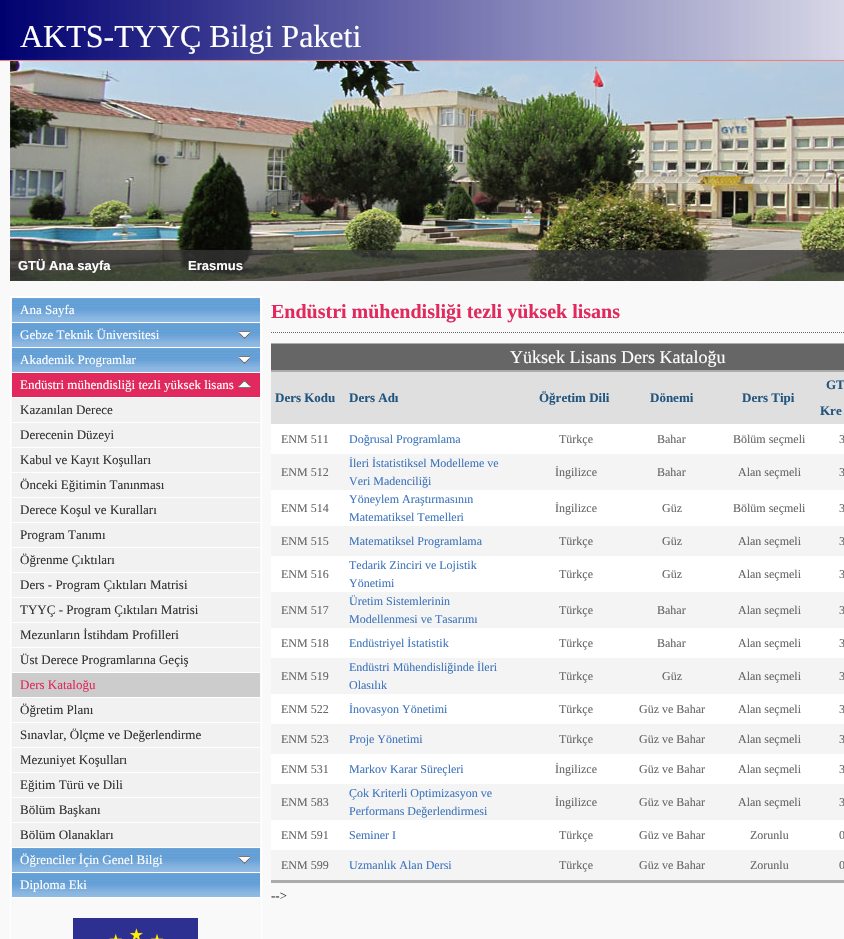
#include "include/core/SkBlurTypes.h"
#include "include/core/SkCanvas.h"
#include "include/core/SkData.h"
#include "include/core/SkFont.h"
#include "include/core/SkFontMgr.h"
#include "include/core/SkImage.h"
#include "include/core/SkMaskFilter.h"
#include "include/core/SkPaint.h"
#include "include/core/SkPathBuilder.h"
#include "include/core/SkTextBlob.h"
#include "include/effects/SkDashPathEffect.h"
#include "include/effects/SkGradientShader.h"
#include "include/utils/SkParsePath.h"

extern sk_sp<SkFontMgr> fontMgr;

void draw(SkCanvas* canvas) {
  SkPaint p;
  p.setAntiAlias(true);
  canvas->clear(SK_ColorWHITE);
  canvas->drawImageRect(SkImages::DeferredFromEncodedData(SkData::MakeFromFileName("images/1.png")), SkRect::MakeLTRB(0, 0, 844, 60), SkSamplingOptions());
  p.setColor(SkColorSetRGB(253, 124, 126));
  canvas->drawRect(SkRect::MakeLTRB(0, 60, 844, 61), p);
  p.setColor(SkColorSetRGB(153, 153, 153));
  p.setMaskFilter(SkMaskFilter::MakeBlur(kNormal_SkBlurStyle, 2));
  canvas->drawRect(SkRect::MakeLTRB(0, 63, 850, 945), p);
  p.setMaskFilter(nullptr);
  p.setColor(SkColorSetRGB(249, 249, 249));
  canvas->drawRect(SkRect::MakeLTRB(0, 61, 844, 939), p);
  canvas->drawImageRect(SkImages::DeferredFromEncodedData(SkData::MakeFromFileName("images/2.png")), SkRect::MakeLTRB(10, 61, 844, 281), SkSamplingOptions());
  p.setStyle(SkPaint::kStroke_Style);
  p.setStrokeWidth(1);
  p.setColor(SK_ColorWHITE);
  canvas->drawRect(SkRect::MakeLTRB(10.5f, 296.5f, 261.5f, 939.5f), p);
  p.setStyle(SkPaint::kFill_Style);
  canvas->drawRect(SkRect::MakeLTRB(11, 297, 261, 299), p);
  canvas->drawImageRect(SkImages::DeferredFromEncodedData(SkData::MakeFromFileName("images/3.png")), SkRect::MakeLTRB(12, 298, 260, 322), SkSamplingOptions());
  canvas->drawRect(SkRect::MakeLTRB(12, 322, 260, 323), p);
  canvas->drawImageRect(SkImages::DeferredFromEncodedData(SkData::MakeFromFileName("images/3.png")), SkRect::MakeLTRB(12, 323, 260, 347), SkSamplingOptions());
  canvas->drawImageRect(SkImages::DeferredFromEncodedData(SkData::MakeFromFileName("images/4.png")), SkRect::MakeLTRB(238, 331, 251, 339), SkSamplingOptions());
  canvas->drawRect(SkRect::MakeLTRB(12, 347, 260, 348), p);
  canvas->drawImageRect(SkImages::DeferredFromEncodedData(SkData::MakeFromFileName("images/3.png")), SkRect::MakeLTRB(12, 348, 260, 372), SkSamplingOptions());
  canvas->drawImageRect(SkImages::DeferredFromEncodedData(SkData::MakeFromFileName("images/4.png")), SkRect::MakeLTRB(238, 356, 251, 364), SkSamplingOptions());
  canvas->drawRect(SkRect::MakeLTRB(12, 372, 260, 373), p);
  p.setColor(SkColorSetRGB(225, 41, 94));
  canvas->drawRect(SkRect::MakeLTRB(12, 373, 260, 397), p);
  canvas->drawImageRect(SkImages::DeferredFromEncodedData(SkData::MakeFromFileName("images/5.png")), SkRect::MakeLTRB(238, 380, 251, 388), SkSamplingOptions());
  p.setColor(SK_ColorWHITE);
  canvas->drawRect(SkRect::MakeLTRB(12, 397, 260, 398), p);
  p.setColor(SkColorSetRGB(241, 241, 241));
  canvas->drawRect(SkRect::MakeLTRB(12, 398, 260, 422), p);
  p.setColor(SK_ColorWHITE);
  canvas->drawRect(SkRect::MakeLTRB(12, 422, 260, 423), p);
  p.setColor(SkColorSetRGB(241, 241, 241));
  canvas->drawRect(SkRect::MakeLTRB(12, 423, 260, 447), p);
  p.setColor(SK_ColorWHITE);
  canvas->drawRect(SkRect::MakeLTRB(12, 447, 260, 448), p);
  p.setColor(SkColorSetRGB(241, 241, 241));
  canvas->drawRect(SkRect::MakeLTRB(12, 448, 260, 472), p);
  p.setColor(SK_ColorWHITE);
  canvas->drawRect(SkRect::MakeLTRB(12, 472, 260, 473), p);
  p.setColor(SkColorSetRGB(241, 241, 241));
  canvas->drawRect(SkRect::MakeLTRB(12, 473, 260, 497), p);
  p.setColor(SK_ColorWHITE);
  canvas->drawRect(SkRect::MakeLTRB(12, 497, 260, 498), p);
  p.setColor(SkColorSetRGB(241, 241, 241));
  canvas->drawRect(SkRect::MakeLTRB(12, 498, 260, 522), p);
  p.setColor(SK_ColorWHITE);
  canvas->drawRect(SkRect::MakeLTRB(12, 522, 260, 523), p);
  p.setColor(SkColorSetRGB(241, 241, 241));
  canvas->drawRect(SkRect::MakeLTRB(12, 523, 260, 547), p);
  p.setColor(SK_ColorWHITE);
  canvas->drawRect(SkRect::MakeLTRB(12, 547, 260, 548), p);
  p.setColor(SkColorSetRGB(241, 241, 241));
  canvas->drawRect(SkRect::MakeLTRB(12, 548, 260, 572), p);
  p.setColor(SK_ColorWHITE);
  canvas->drawRect(SkRect::MakeLTRB(12, 572, 260, 573), p);
  p.setColor(SkColorSetRGB(241, 241, 241));
  canvas->drawRect(SkRect::MakeLTRB(12, 573, 260, 597), p);
  p.setColor(SK_ColorWHITE);
  canvas->drawRect(SkRect::MakeLTRB(12, 597, 260, 598), p);
  p.setColor(SkColorSetRGB(241, 241, 241));
  canvas->drawRect(SkRect::MakeLTRB(12, 598, 260, 622), p);
  p.setColor(SK_ColorWHITE);
  canvas->drawRect(SkRect::MakeLTRB(12, 622, 260, 623), p);
  p.setColor(SkColorSetRGB(241, 241, 241));
  canvas->drawRect(SkRect::MakeLTRB(12, 623, 260, 647), p);
  p.setColor(SK_ColorWHITE);
  canvas->drawRect(SkRect::MakeLTRB(12, 647, 260, 648), p);
  p.setColor(SkColorSetRGB(241, 241, 241));
  canvas->drawRect(SkRect::MakeLTRB(12, 648, 260, 672), p);
  p.setColor(SK_ColorWHITE);
  canvas->drawRect(SkRect::MakeLTRB(12, 672, 260, 673), p);
  p.setColor(SkColorSetRGB(204, 204, 204));
  canvas->drawRect(SkRect::MakeLTRB(12, 673, 260, 697), p);
  p.setColor(SK_ColorWHITE);
  canvas->drawRect(SkRect::MakeLTRB(12, 697, 260, 698), p);
  p.setColor(SkColorSetRGB(241, 241, 241));
  canvas->drawRect(SkRect::MakeLTRB(12, 698, 260, 722), p);
  p.setColor(SK_ColorWHITE);
  canvas->drawRect(SkRect::MakeLTRB(12, 722, 260, 723), p);
  p.setColor(SkColorSetRGB(241, 241, 241));
  canvas->drawRect(SkRect::MakeLTRB(12, 723, 260, 747), p);
  p.setColor(SK_ColorWHITE);
  canvas->drawRect(SkRect::MakeLTRB(12, 747, 260, 748), p);
  p.setColor(SkColorSetRGB(241, 241, 241));
  canvas->drawRect(SkRect::MakeLTRB(12, 748, 260, 772), p);
  p.setColor(SK_ColorWHITE);
  canvas->drawRect(SkRect::MakeLTRB(12, 772, 260, 773), p);
  p.setColor(SkColorSetRGB(241, 241, 241));
  canvas->drawRect(SkRect::MakeLTRB(12, 773, 260, 797), p);
  p.setColor(SK_ColorWHITE);
  canvas->drawRect(SkRect::MakeLTRB(12, 797, 260, 798), p);
  p.setColor(SkColorSetRGB(241, 241, 241));
  canvas->drawRect(SkRect::MakeLTRB(12, 798, 260, 822), p);
  p.setColor(SK_ColorWHITE);
  canvas->drawRect(SkRect::MakeLTRB(12, 822, 260, 823), p);
  p.setColor(SkColorSetRGB(241, 241, 241));
  canvas->drawRect(SkRect::MakeLTRB(12, 823, 260, 847), p);
  p.setColor(SK_ColorWHITE);
  canvas->drawRect(SkRect::MakeLTRB(12, 847, 260, 848), p);
  canvas->drawImageRect(SkImages::DeferredFromEncodedData(SkData::MakeFromFileName("images/3.png")), SkRect::MakeLTRB(12, 848, 260, 872), SkSamplingOptions());
  canvas->drawImageRect(SkImages::DeferredFromEncodedData(SkData::MakeFromFileName("images/4.png")), SkRect::MakeLTRB(238, 856, 251, 864), SkSamplingOptions());
  canvas->drawRect(SkRect::MakeLTRB(12, 872, 260, 873), p);
  canvas->drawImageRect(SkImages::DeferredFromEncodedData(SkData::MakeFromFileName("images/3.png")), SkRect::MakeLTRB(12, 873, 260, 897), SkSamplingOptions());
  canvas->drawRect(SkRect::MakeLTRB(12, 897, 260, 898), p);
  canvas->drawImageRect(SkImages::DeferredFromEncodedData(SkData::MakeFromFileName("images/6.png")), SkRect::MakeLTRB(73, 918, 198, 939), SkSamplingOptions());
  p.setStyle(SkPaint::kStroke_Style);
  p.setColor(SkColorSetRGB(102, 102, 102));
  p.setPathEffect(SkDashPathEffect::Make({{1, 1}}, 0));
  canvas->drawPath(SkPathBuilder().moveTo(271, 332.5f).lineTo(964, 332.5f).detach(), p);
  p.setPathEffect(nullptr);
  p.setStyle(SkPaint::kFill_Style);
  p.setColor(SkColorSetRGB(171, 171, 171));
  canvas->drawRect(SkRect::MakeLTRB(271, 343, 844, 344), p);
  p.setColor(SkColorSetRGB(102, 102, 102));
  canvas->drawRect(SkRect::MakeLTRB(271, 344, 844, 370), p);
  p.setColor(SkColorSetRGB(171, 171, 171));
  canvas->drawRect(SkRect::MakeLTRB(271, 370, 844, 372), p);
  p.setColor(SkColorSetRGB(223, 223, 223));
  canvas->drawRect(SkRect::MakeLTRB(271, 372, 844, 424), p);
  p.setColor(SK_ColorWHITE);
  canvas->drawRect(SkRect::MakeLTRB(271, 424, 844, 454), p);
  p.setColor(SkColorSetRGB(244, 244, 244));
  canvas->drawRect(SkRect::MakeLTRB(271, 454, 844, 490), p);
  p.setColor(SK_ColorWHITE);
  canvas->drawRect(SkRect::MakeLTRB(271, 490, 844, 526), p);
  p.setColor(SkColorSetRGB(244, 244, 244));
  canvas->drawRect(SkRect::MakeLTRB(271, 526, 844, 556), p);
  p.setColor(SK_ColorWHITE);
  canvas->drawRect(SkRect::MakeLTRB(271, 556, 844, 592), p);
  p.setColor(SkColorSetRGB(244, 244, 244));
  canvas->drawRect(SkRect::MakeLTRB(271, 592, 844, 628), p);
  p.setColor(SK_ColorWHITE);
  canvas->drawRect(SkRect::MakeLTRB(271, 628, 844, 658), p);
  p.setColor(SkColorSetRGB(244, 244, 244));
  canvas->drawRect(SkRect::MakeLTRB(271, 658, 844, 694), p);
  p.setColor(SK_ColorWHITE);
  canvas->drawRect(SkRect::MakeLTRB(271, 694, 844, 724), p);
  p.setColor(SkColorSetRGB(244, 244, 244));
  canvas->drawRect(SkRect::MakeLTRB(271, 724, 844, 754), p);
  p.setColor(SK_ColorWHITE);
  canvas->drawRect(SkRect::MakeLTRB(271, 754, 844, 784), p);
  p.setColor(SkColorSetRGB(244, 244, 244));
  canvas->drawRect(SkRect::MakeLTRB(271, 784, 844, 820), p);
  p.setColor(SK_ColorWHITE);
  canvas->drawRect(SkRect::MakeLTRB(271, 820, 844, 850), p);
  p.setColor(SkColorSetRGB(244, 244, 244));
  canvas->drawRect(SkRect::MakeLTRB(271, 850, 844, 880), p);
  p.setColor(SkColorSetRGB(171, 171, 171));
  canvas->drawRect(SkRect::MakeLTRB(271, 880, 844, 883), p);
  SkFont font1(fontMgr->matchFamilyStyle("Liberation Serif", SkFontStyle::Normal()), 32);
  font1.setSubpixel(true);
  p.setColor(SK_ColorWHITE);
  canvas->drawString("AKTS-TYYÇ Bilgi Paketi", 20, 47, font1, p);
  SkFont font2(fontMgr->matchFamilyStyle("Liberation Sans", SkFontStyle::Bold()), 13);
  font2.setSubpixel(true);
  canvas->drawString("GTÜ Ana sayfa", 18, 270, font2, p);
  canvas->drawString("Erasmus", 188, 270, font2, p);
  SkFont font3(fontMgr->matchFamilyStyle("Liberation Serif", SkFontStyle::Normal()), 13);
  font3.setSubpixel(true);
  canvas->drawString("Ana Sayfa", 20, 314, font3, p);
  canvas->drawString("Gebze Teknik Üniversitesi", 20, 339, font3, p);
  canvas->drawString("Akademik Programlar", 20, 364, font3, p);
  canvas->drawString("Endüstri mühendisliği tezli yüksek lisans", 20, 389, font3, p);
  p.setColor(SkColorSetRGB(51, 51, 51));
  canvas->drawString("Kazanılan Derece", 20, 414, font3, p);
  canvas->drawString("Derecenin Düzeyi", 20, 439, font3, p);
  canvas->drawString("Kabul ve Kayıt Koşulları", 20, 464, font3, p);
  canvas->drawString("Önceki Eğitimin Tanınması", 20, 489, font3, p);
  canvas->drawString("Derece Koşul ve Kuralları", 20, 514, font3, p);
  canvas->drawString("Program Tanımı", 20, 539, font3, p);
  canvas->drawString("Öğrenme Çıktıları", 20, 564, font3, p);
  canvas->drawString("Ders - Program Çıktıları Matrisi", 20, 589, font3, p);
  canvas->drawString("TYYÇ - Program Çıktıları Matrisi", 20, 614, font3, p);
  canvas->drawString("Mezunların İstihdam Profilleri", 20, 639, font3, p);
  canvas->drawString("Üst Derece Programlarına Geçiş", 20, 664, font3, p);
  p.setColor(SkColorSetRGB(225, 41, 94));
  canvas->drawString("Ders Kataloğu", 20, 689, font3, p);
  p.setColor(SkColorSetRGB(51, 51, 51));
  canvas->drawString("Öğretim Planı", 20, 714, font3, p);
  canvas->drawString("Sınavlar, Ölçme ve Değerlendirme", 20, 739, font3, p);
  canvas->drawString("Mezuniyet Koşulları", 20, 764, font3, p);
  canvas->drawString("Eğitim Türü ve Dili", 20, 789, font3, p);
  canvas->drawString("Bölüm Başkanı", 20, 814, font3, p);
  canvas->drawString("Bölüm Olanakları", 20, 839, font3, p);
  p.setColor(SK_ColorWHITE);
  canvas->drawString("Öğrenciler İçin Genel Bilgi", 20, 864, font3, p);
  canvas->drawString("Diploma Eki", 20, 889, font3, p);
  SkFont font4(fontMgr->matchFamilyStyle("Liberation Serif", SkFontStyle::Bold()), 20);
  font4.setSubpixel(true);
  p.setColor(SkColorSetRGB(225, 41, 94));
  canvas->drawString("Endüstri mühendisliği tezli yüksek lisans", 271, 318, font4, p);
  SkFont font5(fontMgr->matchFamilyStyle("Liberation Serif", SkFontStyle::Normal()), 18);
  font5.setSubpixel(true);
  p.setColor(SK_ColorWHITE);
  canvas->drawString("Yüksek Lisans Ders Kataloğu", 510, 363, font5, p);
  SkFont font6(fontMgr->matchFamilyStyle("Liberation Serif", SkFontStyle::Bold()), 13);
  font6.setSubpixel(true);
  p.setColor(SkColorSetRGB(35, 85, 125));
  canvas->drawString("Ders Kodu", 275, 402, font6, p);
  canvas->drawString("Ders Adı", 349, 402, font6, p);
  canvas->drawString("Öğretim Dili", 539, 402, font6, p);
  canvas->drawString("Dönemi", 650, 402, font6, p);
  canvas->drawString("Ders Tipi", 742, 402, font6, p);
  canvas->drawString("GT", 826, 389, font6, p);
  canvas->drawString("Kre", 820, 415, font6, p);
  SkFont font7(fontMgr->matchFamilyStyle("Liberation Serif", SkFontStyle::Normal()), 12);
  font7.setSubpixel(true);
  p.setColor(SkColorSetRGB(102, 102, 102));
  canvas->drawString("ENM 511", 281, 443, font7, p);
  p.setColor(SkColorSetRGB(62, 117, 189));
  canvas->drawString("Doğrusal Programlama", 349, 443, font7, p);
  p.setColor(SkColorSetRGB(102, 102, 102));
  canvas->drawString("Türkçe", 559, 443, font7, p);
  canvas->drawString("Bahar", 657, 443, font7, p);
  canvas->drawString("Bölüm seçmeli", 733, 443, font7, p);
  canvas->drawString("3", 839, 443, font7, p);
  canvas->drawString("ENM 512", 281, 476, font7, p);
  p.setColor(SkColorSetRGB(62, 117, 189));
  canvas->drawString("İleri İstatistiksel Modelleme ve", 349, 467, font7, p);
  canvas->drawString("Veri Madenciliği", 349, 485, font7, p);
  p.setColor(SkColorSetRGB(102, 102, 102));
  canvas->drawString("İngilizce", 555, 476, font7, p);
  canvas->drawString("Bahar", 657, 476, font7, p);
  canvas->drawString("Alan seçmeli", 738, 476, font7, p);
  canvas->drawString("3", 839, 476, font7, p);
  canvas->drawString("ENM 514", 281, 512, font7, p);
  p.setColor(SkColorSetRGB(62, 117, 189));
  canvas->drawString("Yöneylem Araştırmasının", 349, 503, font7, p);
  canvas->drawString("Matematiksel Temelleri", 349, 521, font7, p);
  p.setColor(SkColorSetRGB(102, 102, 102));
  canvas->drawString("İngilizce", 555, 512, font7, p);
  canvas->drawString("Güz", 662, 512, font7, p);
  canvas->drawString("Bölüm seçmeli", 733, 512, font7, p);
  canvas->drawString("3", 839, 512, font7, p);
  canvas->drawString("ENM 515", 281, 545, font7, p);
  p.setColor(SkColorSetRGB(62, 117, 189));
  canvas->drawString("Matematiksel Programlama", 349, 545, font7, p);
  p.setColor(SkColorSetRGB(102, 102, 102));
  canvas->drawString("Türkçe", 559, 545, font7, p);
  canvas->drawString("Güz", 662, 545, font7, p);
  canvas->drawString("Alan seçmeli", 738, 545, font7, p);
  canvas->drawString("3", 839, 545, font7, p);
  canvas->drawString("ENM 516", 281, 578, font7, p);
  p.setColor(SkColorSetRGB(62, 117, 189));
  canvas->drawString("Tedarik Zinciri ve Lojistik", 349, 569, font7, p);
  canvas->drawString("Yönetimi", 349, 587, font7, p);
  p.setColor(SkColorSetRGB(102, 102, 102));
  canvas->drawString("Türkçe", 559, 578, font7, p);
  canvas->drawString("Güz", 662, 578, font7, p);
  canvas->drawString("Alan seçmeli", 738, 578, font7, p);
  canvas->drawString("3", 839, 578, font7, p);
  canvas->drawString("ENM 517", 281, 614, font7, p);
  p.setColor(SkColorSetRGB(62, 117, 189));
  canvas->drawString("Üretim Sistemlerinin", 349, 605, font7, p);
  canvas->drawString("Modellenmesi ve Tasarımı", 349, 623, font7, p);
  p.setColor(SkColorSetRGB(102, 102, 102));
  canvas->drawString("Türkçe", 559, 614, font7, p);
  canvas->drawString("Bahar", 657, 614, font7, p);
  canvas->drawString("Alan seçmeli", 738, 614, font7, p);
  canvas->drawString("3", 839, 614, font7, p);
  canvas->drawString("ENM 518", 281, 647, font7, p);
  p.setColor(SkColorSetRGB(62, 117, 189));
  canvas->drawString("Endüstriyel İstatistik", 349, 647, font7, p);
  p.setColor(SkColorSetRGB(102, 102, 102));
  canvas->drawString("Türkçe", 559, 647, font7, p);
  canvas->drawString("Bahar", 657, 647, font7, p);
  canvas->drawString("Alan seçmeli", 738, 647, font7, p);
  canvas->drawString("3", 839, 647, font7, p);
  canvas->drawString("ENM 519", 281, 680, font7, p);
  p.setColor(SkColorSetRGB(62, 117, 189));
  canvas->drawString("Endüstri Mühendisliğinde İleri", 349, 671, font7, p);
  canvas->drawString("Olasılık", 349, 689, font7, p);
  p.setColor(SkColorSetRGB(102, 102, 102));
  canvas->drawString("Türkçe", 559, 680, font7, p);
  canvas->drawString("Güz", 662, 680, font7, p);
  canvas->drawString("Alan seçmeli", 738, 680, font7, p);
  canvas->drawString("3", 839, 680, font7, p);
  canvas->drawString("ENM 522", 281, 713, font7, p);
  p.setColor(SkColorSetRGB(62, 117, 189));
  canvas->drawString("İnovasyon Yönetimi", 349, 713, font7, p);
  p.setColor(SkColorSetRGB(102, 102, 102));
  canvas->drawString("Türkçe", 559, 713, font7, p);
  canvas->drawString("Güz ve Bahar", 639, 713, font7, p);
  canvas->drawString("Alan seçmeli", 738, 713, font7, p);
  canvas->drawString("3", 839, 713, font7, p);
  canvas->drawString("ENM 523", 281, 743, font7, p);
  p.setColor(SkColorSetRGB(62, 117, 189));
  canvas->drawString("Proje Yönetimi", 349, 743, font7, p);
  p.setColor(SkColorSetRGB(102, 102, 102));
  canvas->drawString("Türkçe", 559, 743, font7, p);
  canvas->drawString("Güz ve Bahar", 639, 743, font7, p);
  canvas->drawString("Alan seçmeli", 738, 743, font7, p);
  canvas->drawString("3", 839, 743, font7, p);
  canvas->drawString("ENM 531", 281, 773, font7, p);
  p.setColor(SkColorSetRGB(62, 117, 189));
  canvas->drawString("Markov Karar Süreçleri", 349, 773, font7, p);
  p.setColor(SkColorSetRGB(102, 102, 102));
  canvas->drawString("İngilizce", 555, 773, font7, p);
  canvas->drawString("Güz ve Bahar", 639, 773, font7, p);
  canvas->drawString("Alan seçmeli", 738, 773, font7, p);
  canvas->drawString("3", 839, 773, font7, p);
  canvas->drawString("ENM 583", 281, 806, font7, p);
  p.setColor(SkColorSetRGB(62, 117, 189));
  canvas->drawString("Çok Kriterli Optimizasyon ve", 349, 797, font7, p);
  canvas->drawString("Performans Değerlendirmesi", 349, 815, font7, p);
  p.setColor(SkColorSetRGB(102, 102, 102));
  canvas->drawString("İngilizce", 555, 806, font7, p);
  canvas->drawString("Güz ve Bahar", 639, 806, font7, p);
  canvas->drawString("Alan seçmeli", 738, 806, font7, p);
  canvas->drawString("3", 839, 806, font7, p);
  canvas->drawString("ENM 591", 281, 839, font7, p);
  p.setColor(SkColorSetRGB(62, 117, 189));
  canvas->drawString("Seminer I", 349, 839, font7, p);
  p.setColor(SkColorSetRGB(102, 102, 102));
  canvas->drawString("Türkçe", 559, 839, font7, p);
  canvas->drawString("Güz ve Bahar", 639, 839, font7, p);
  canvas->drawString("Zorunlu", 750, 839, font7, p);
  canvas->drawString("0", 839, 839, font7, p);
  canvas->drawString("ENM 599", 281, 869, font7, p);
  p.setColor(SkColorSetRGB(62, 117, 189));
  canvas->drawString("Uzmanlık Alan Dersi", 349, 869, font7, p);
  p.setColor(SkColorSetRGB(102, 102, 102));
  canvas->drawString("Türkçe", 559, 869, font7, p);
  canvas->drawString("Güz ve Bahar", 639, 869, font7, p);
  canvas->drawString("Zorunlu", 750, 869, font7, p);
  canvas->drawString("0", 839, 869, font7, p);
  p.setColor(SkColorSetRGB(51, 51, 51));
  canvas->drawString("-->", 271, 900, font3, p);
}
